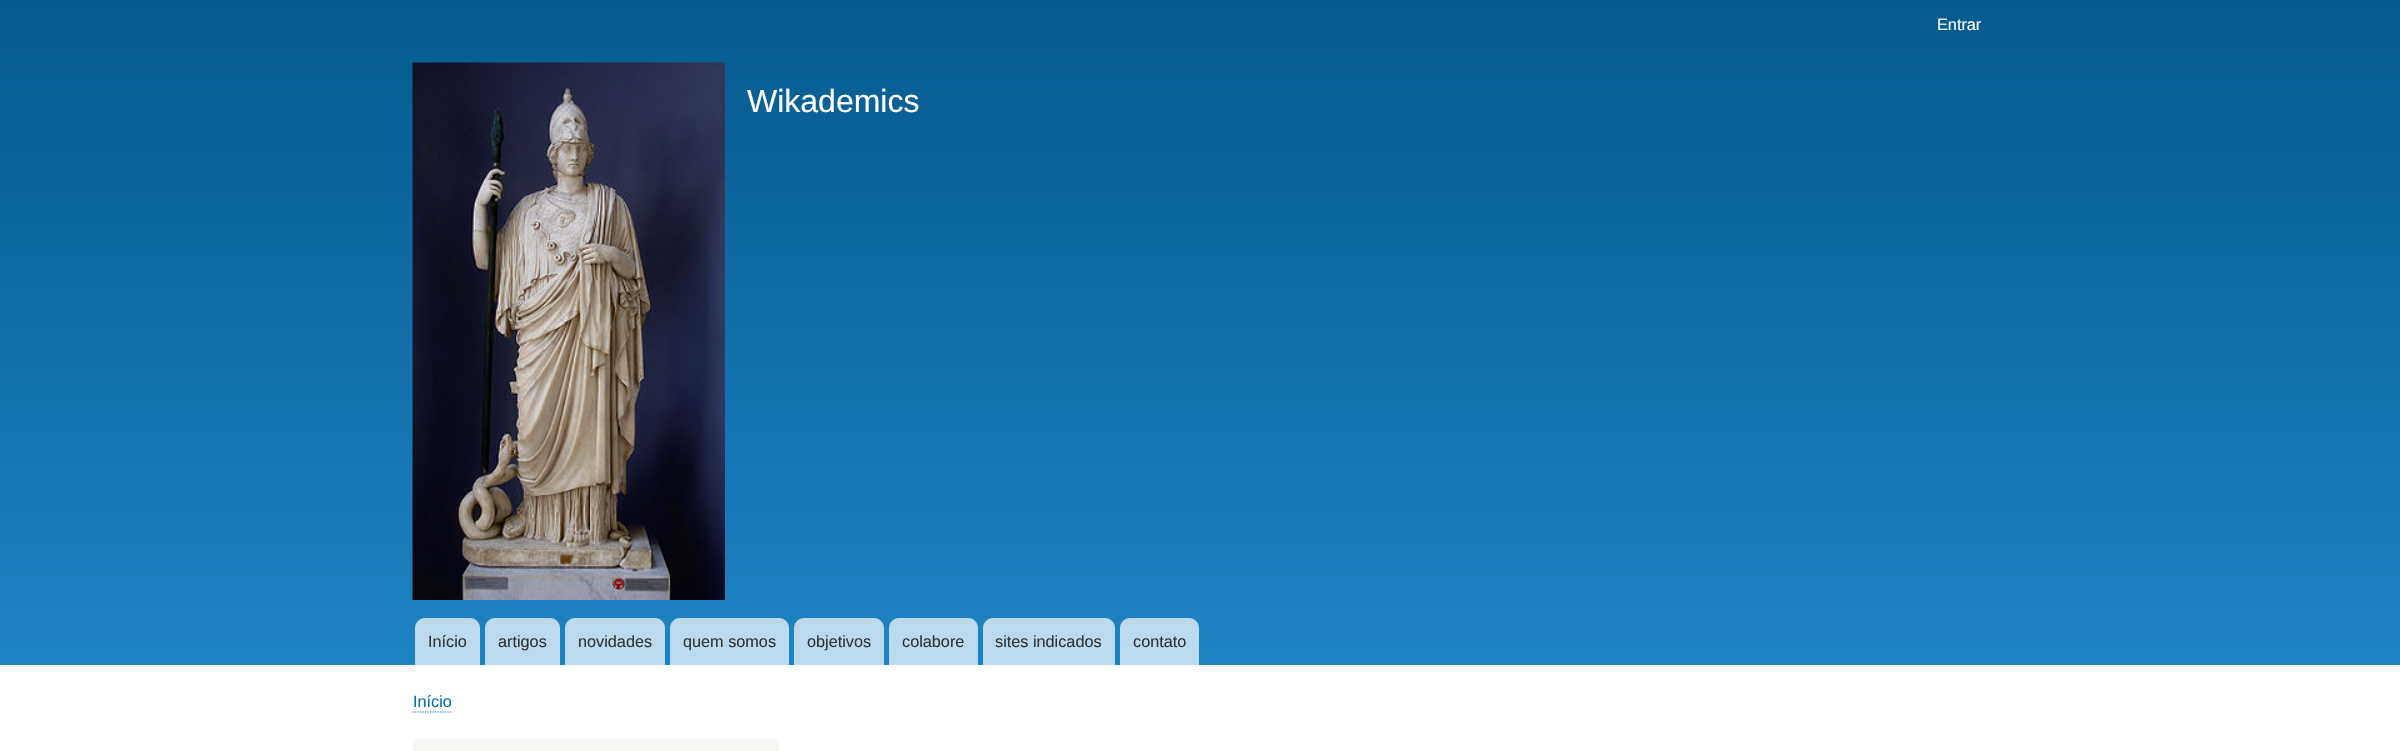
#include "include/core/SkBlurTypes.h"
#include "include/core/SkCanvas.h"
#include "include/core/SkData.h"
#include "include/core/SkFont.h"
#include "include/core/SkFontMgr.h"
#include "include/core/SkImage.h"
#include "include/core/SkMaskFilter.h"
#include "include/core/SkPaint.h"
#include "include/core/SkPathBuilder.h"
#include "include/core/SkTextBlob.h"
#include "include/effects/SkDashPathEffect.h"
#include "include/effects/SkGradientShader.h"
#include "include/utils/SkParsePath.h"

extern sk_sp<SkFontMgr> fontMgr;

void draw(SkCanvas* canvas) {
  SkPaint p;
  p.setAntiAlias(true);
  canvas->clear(SK_ColorWHITE);
  {
    const SkColor colors[] = {SkColorSetRGB(5, 90, 142), SkColorSetRGB(29, 132, 195)};
    const float stops[] = {0, 1};
    const SkPoint ends[] = {{1200, 0}, {1200, 665}};
    p.setShader(SkGradientShader::MakeLinear(ends, colors, stops, 2, SkTileMode::kClamp));
    p.setAlpha(255);
  }
  canvas->drawRect(SkRect::MakeLTRB(0, 0, 2400, 665), p);
  canvas->drawImageRect(SkImages::DeferredFromEncodedData(SkData::MakeFromFileName("images/1.png")), SkRect::MakeLTRB(412, 62, 725, 600), SkSamplingOptions());
  p.setShader(nullptr);
  p.setColor(SkColorSetARGB(179, 255, 255, 255));
  canvas->drawPath(SkPathBuilder().moveTo(425, 618).lineTo(470, 618).cubicTo(475.5f, 618, 480, 622.5f, 480, 628).lineTo(480, 665).lineTo(415, 665).lineTo(415, 628).cubicTo(415, 622.5f, 419.5f, 618, 425, 618).close().detach(), p);
  canvas->drawPath(SkPathBuilder().moveTo(495, 618).lineTo(550, 618).cubicTo(555.5f, 618, 560, 622.5f, 560, 628).lineTo(560, 665).lineTo(485, 665).lineTo(485, 628).cubicTo(485, 622.5f, 489.5f, 618, 495, 618).close().detach(), p);
  canvas->drawPath(SkPathBuilder().moveTo(575, 618).lineTo(655, 618).cubicTo(660.5f, 618, 665, 622.5f, 665, 628).lineTo(665, 665).lineTo(565, 665).lineTo(565, 628).cubicTo(565, 622.5f, 569.5f, 618, 575, 618).close().detach(), p);
  canvas->drawPath(SkPathBuilder().moveTo(680, 618).lineTo(779, 618).cubicTo(784.5f, 618, 789, 622.5f, 789, 628).lineTo(789, 665).lineTo(670, 665).lineTo(670, 628).cubicTo(670, 622.5f, 674.5f, 618, 680, 618).close().detach(), p);
  canvas->drawPath(SkPathBuilder().moveTo(804, 618).lineTo(874, 618).cubicTo(879.5f, 618, 884, 622.5f, 884, 628).lineTo(884, 665).lineTo(794, 665).lineTo(794, 628).cubicTo(794, 622.5f, 798.5f, 618, 804, 618).close().detach(), p);
  canvas->drawPath(SkPathBuilder().moveTo(899, 618).lineTo(968, 618).cubicTo(973.5f, 618, 978, 622.5f, 978, 628).lineTo(978, 665).lineTo(889, 665).lineTo(889, 628).cubicTo(889, 622.5f, 893.5f, 618, 899, 618).close().detach(), p);
  canvas->drawPath(SkPathBuilder().moveTo(993, 618).lineTo(1105, 618).cubicTo(1110.5f, 618, 1115, 622.5f, 1115, 628).lineTo(1115, 665).lineTo(983, 665).lineTo(983, 628).cubicTo(983, 622.5f, 987.5f, 618, 993, 618).close().detach(), p);
  canvas->drawPath(SkPathBuilder().moveTo(1130, 618).lineTo(1189, 618).cubicTo(1194.5f, 618, 1199, 622.5f, 1199, 628).lineTo(1199, 665).lineTo(1120, 665).lineTo(1120, 628).cubicTo(1120, 622.5f, 1124.5f, 618, 1130, 618).close().detach(), p);
  p.setStyle(SkPaint::kStroke_Style);
  p.setStrokeWidth(1.2f);
  p.setColor(SkColorSetRGB(0, 113, 179));
  p.setPathEffect(SkDashPathEffect::Make({{1.25f, 1.25f}}, 0));
  canvas->drawPath(SkPathBuilder().moveTo(412.5f, 712).lineTo(451, 712).detach(), p);
  p.setPathEffect(nullptr);
  p.setStyle(SkPaint::kFill_Style);
  p.setColor(SkColorSetRGB(246, 246, 242));
  canvas->drawRect(SkRect::MakeLTRB(413.5f, 739.5f, 778.5f, 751.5f), p);
  p.setStyle(SkPaint::kStroke_Style);
  p.setStrokeWidth(1);
  p.setColor(SkColorSetRGB(249, 249, 249));
  canvas->drawRect(SkRect::MakeLTRB(413.5f, 739.5f, 778.5f, 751.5f), p);
  SkFont font1(fontMgr->matchFamilyStyle("Liberation Sans", SkFontStyle::Normal()), 16.25f);
  font1.setSubpixel(true);
  p.setStyle(SkPaint::kFill_Style);
  p.setColor(SkColorSetRGB(255, 254, 255));
  canvas->drawString("Entrar", 1937, 30, font1, p);
  SkFont font2(fontMgr->matchFamilyStyle("Liberation Sans", SkFontStyle::Normal()), 32);
  font2.setSubpixel(true);
  canvas->drawString("Wikademics", 747, 112, font2, p);
  p.setColor(SkColorSetRGB(51, 51, 51));
  canvas->drawString("Início", 428, 647, font1, p);
  canvas->drawString("artigos", 498, 647, font1, p);
  canvas->drawString("novidades", 578, 647, font1, p);
  canvas->drawString("quem somos", 683, 647, font1, p);
  canvas->drawString("objetivos", 807, 647, font1, p);
  canvas->drawString("colabore", 902, 647, font1, p);
  canvas->drawString("sites indicados", 995, 647, font1, p);
  canvas->drawString("contato", 1133, 647, font1, p);
  p.setColor(SkColorSetRGB(0, 113, 179));
  canvas->drawString("Início", 413, 707, font1, p);
}
